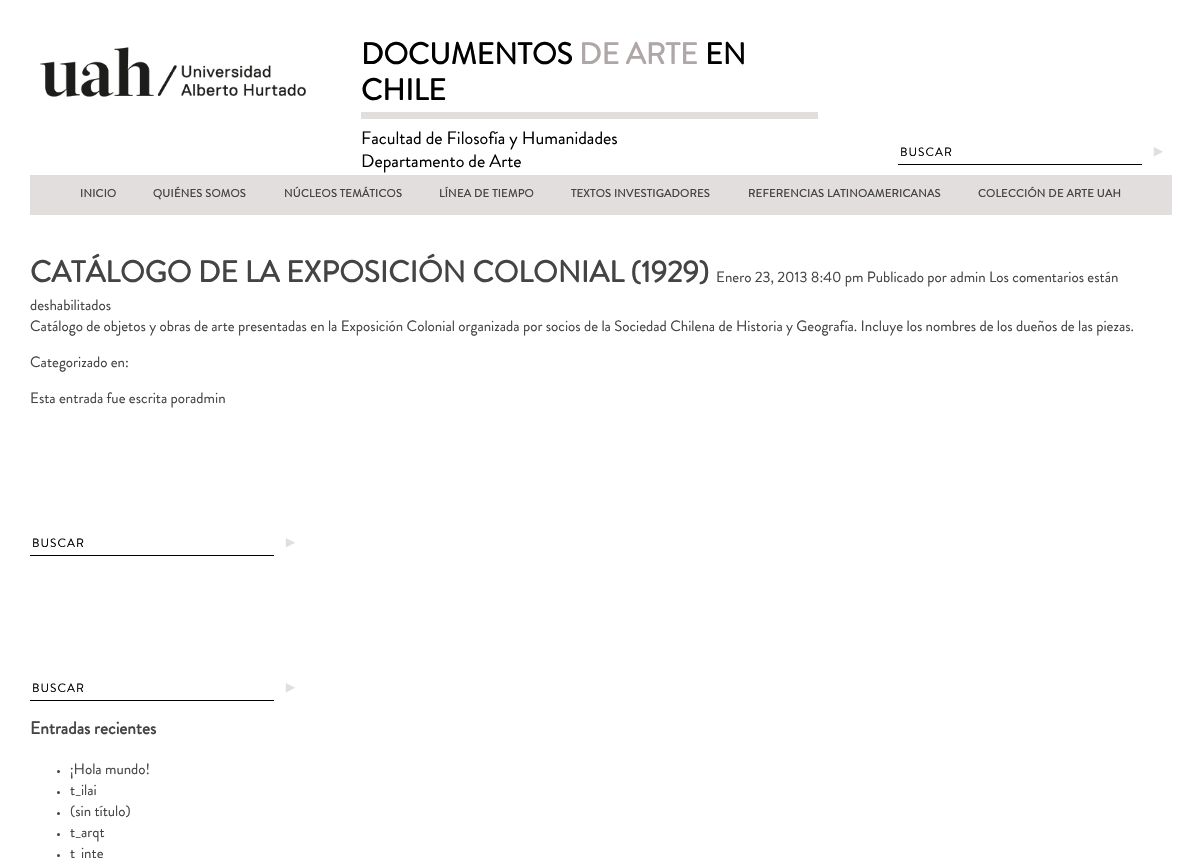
#include "include/core/SkBlurTypes.h"
#include "include/core/SkCanvas.h"
#include "include/core/SkData.h"
#include "include/core/SkFont.h"
#include "include/core/SkFontMgr.h"
#include "include/core/SkImage.h"
#include "include/core/SkMaskFilter.h"
#include "include/core/SkPaint.h"
#include "include/core/SkPathBuilder.h"
#include "include/core/SkTextBlob.h"
#include "include/effects/SkDashPathEffect.h"
#include "include/effects/SkGradientShader.h"
#include "include/utils/SkParsePath.h"

extern sk_sp<SkFontMgr> fontMgr;

void draw(SkCanvas* canvas) {
  SkPaint p;
  p.setAntiAlias(true);
  auto spacedText = [&](const char* s, float x, float y, const SkFont& font, const SkPaint& ink, float letter, float word) {
    std::vector<SkGlyphID> glyphs(font.countText(s, strlen(s), SkTextEncoding::kUTF8));
    std::vector<float> xs(glyphs.size());
    font.textToGlyphs(s, strlen(s), SkTextEncoding::kUTF8, glyphs);
    font.getXPos(glyphs, xs, x);
    float extra = 0;
    for (size_t i = 0; i < glyphs.size(); i++) {
      xs[i] += extra;
      extra += letter + word * (glyphs[i] == font.unicharToGlyph(' '));
    }
    canvas->drawTextBlob(SkTextBlob::MakeFromPosHGlyphs(glyphs, xs, y, font), 0, 0, ink);
  };
  canvas->clear(SK_ColorWHITE);
  canvas->drawImageRect(SkImages::DeferredFromEncodedData(SkData::MakeFromFileName("images/1.png")), SkRect::MakeLTRB(40, 47, 306, 97), SkSamplingOptions());
  p.setColor(SkColorSetRGB(227, 222, 222));
  canvas->drawRect(SkRect::MakeLTRB(361, 112, 818, 119), p);
  p.setColor(SK_ColorBLACK);
  canvas->drawRect(SkRect::MakeLTRB(898, 164, 1142, 165), p);
  p.setColor(SkColorSetRGB(227, 222, 222));
  canvas->drawRect(SkRect::MakeLTRB(30, 175, 1172, 215), p);
  p.setColor(SK_ColorBLACK);
  canvas->drawRect(SkRect::MakeLTRB(30, 555, 274, 556), p);
  canvas->drawRect(SkRect::MakeLTRB(30, 700, 274, 701), p);
  p.setColor(SkColorSetRGB(68, 68, 68));
  canvas->drawCircle(58.5f, 771.5f, 1.5f, p);
  canvas->drawCircle(58.5f, 792.5f, 1.5f, p);
  canvas->drawCircle(58.5f, 813.5f, 1.5f, p);
  canvas->drawCircle(58.5f, 834.5f, 1.5f, p);
  canvas->drawCircle(58.5f, 855.5f, 1.5f, p);
  SkFont font1(fontMgr->matchFamilyStyle("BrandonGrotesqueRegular", SkFontStyle::Bold()), 30);
  font1.setSubpixel(true);
  p.setColor(SK_ColorBLACK);
  canvas->drawString("DOCUMENTOS", 361, 64, font1, p);
  p.setColor(SkColorSetRGB(175, 167, 167));
  canvas->drawString("DE ARTE", 579, 64, font1, p);
  p.setColor(SK_ColorBLACK);
  canvas->drawString("EN", 705, 64, font1, p);
  canvas->drawString("CHILE", 361, 100, font1, p);
  SkFont font2(fontMgr->matchFamilyStyle("BrandonGrotesqueRegular", SkFontStyle::Normal()), 18);
  font2.setSubpixel(true);
  canvas->drawString("Facultad de Filosofía y Humanidades", 361, 144, font2, p);
  canvas->drawString("Departamento de Arte", 361, 167, font2, p);
  SkFont font3(fontMgr->matchFamilyStyle("BrandonGrotesqueRegular", SkFontStyle::Normal()), 12);
  font3.setSubpixel(true);
  spacedText("BUSCAR", 900, 156, font3, p, 1, 0);
  SkFont font4(fontMgr->matchFamilyStyle("Liberation Sans", SkFontStyle::Normal()), 15);
  font4.setSubpixel(true);
  p.setColor(SkColorSetRGB(227, 222, 222));
  canvas->drawString("►", 1151, 156, font4, p);
  SkFont font5(fontMgr->matchFamilyStyle("BrandonGrotesqueRegular", SkFontStyle::Bold()), 11);
  font5.setSubpixel(true);
  p.setColor(SkColorSetRGB(68, 68, 68));
  spacedText("INICIO", 80, 197, font5, p, 0.3f, 0);
  spacedText("QUIÉNES SOMOS", 153, 197, font5, p, 0.3f, 0);
  spacedText("NÚCLEOS TEMÁTICOS", 284, 197, font5, p, 0.3f, 0);
  spacedText("LÍNEA DE TIEMPO", 439, 197, font5, p, 0.3f, 0);
  spacedText("TEXTOS INVESTIGADORES", 571, 197, font5, p, 0.3f, 0);
  spacedText("REFERENCIAS LATINOAMERICANAS", 748, 197, font5, p, 0.3f, 0);
  spacedText("COLECCIÓN DE ARTE UAH", 978, 197, font5, p, 0.3f, 0);
  canvas->drawString("CATÁLOGO DE LA EXPOSICIÓN COLONIAL (1929)", 30, 282, font1, p);
  SkFont font6(fontMgr->matchFamilyStyle("BrandonGrotesqueRegular", SkFontStyle::Normal()), 15);
  font6.setSubpixel(true);
  canvas->drawString("Enero 23, 2013 8:40 pm Publicado por admin Los comentarios están", 716, 282, font6, p);
  canvas->drawString("deshabilitados", 30, 310, font6, p);
  canvas->drawString("Catálogo de objetos y obras de arte presentadas en la Exposición Colonial organizada por socios de la Sociedad Chilena de Historia y Geografía. Incluye los nombres de los dueños de las piezas.", 30, 331, font6, p);
  canvas->drawString("Categorizado en:", 30, 367, font6, p);
  canvas->drawString("Esta entrada fue escrita poradmin", 30, 403, font6, p);
  p.setColor(SK_ColorBLACK);
  spacedText("BUSCAR", 32, 547, font3, p, 1, 0);
  p.setColor(SkColorSetRGB(227, 222, 222));
  canvas->drawString("►", 283, 547, font4, p);
  p.setColor(SK_ColorBLACK);
  spacedText("BUSCAR", 32, 692, font3, p, 1, 0);
  p.setColor(SkColorSetRGB(227, 222, 222));
  canvas->drawString("►", 283, 692, font4, p);
  SkFont font7(fontMgr->matchFamilyStyle("BrandonGrotesqueRegular", SkFontStyle::Bold()), 17.5f);
  font7.setSubpixel(true);
  p.setColor(SkColorSetRGB(68, 68, 68));
  canvas->drawString("Entradas recientes", 30, 734, font7, p);
  canvas->drawString("¡Hola mundo!", 70, 774, font6, p);
  canvas->drawString("t_ilai", 70, 795, font6, p);
  canvas->drawString("(sin título)", 70, 816, font6, p);
  canvas->drawString("t_arqt", 70, 837, font6, p);
  canvas->drawString("t_inte", 70, 858, font6, p);
}
